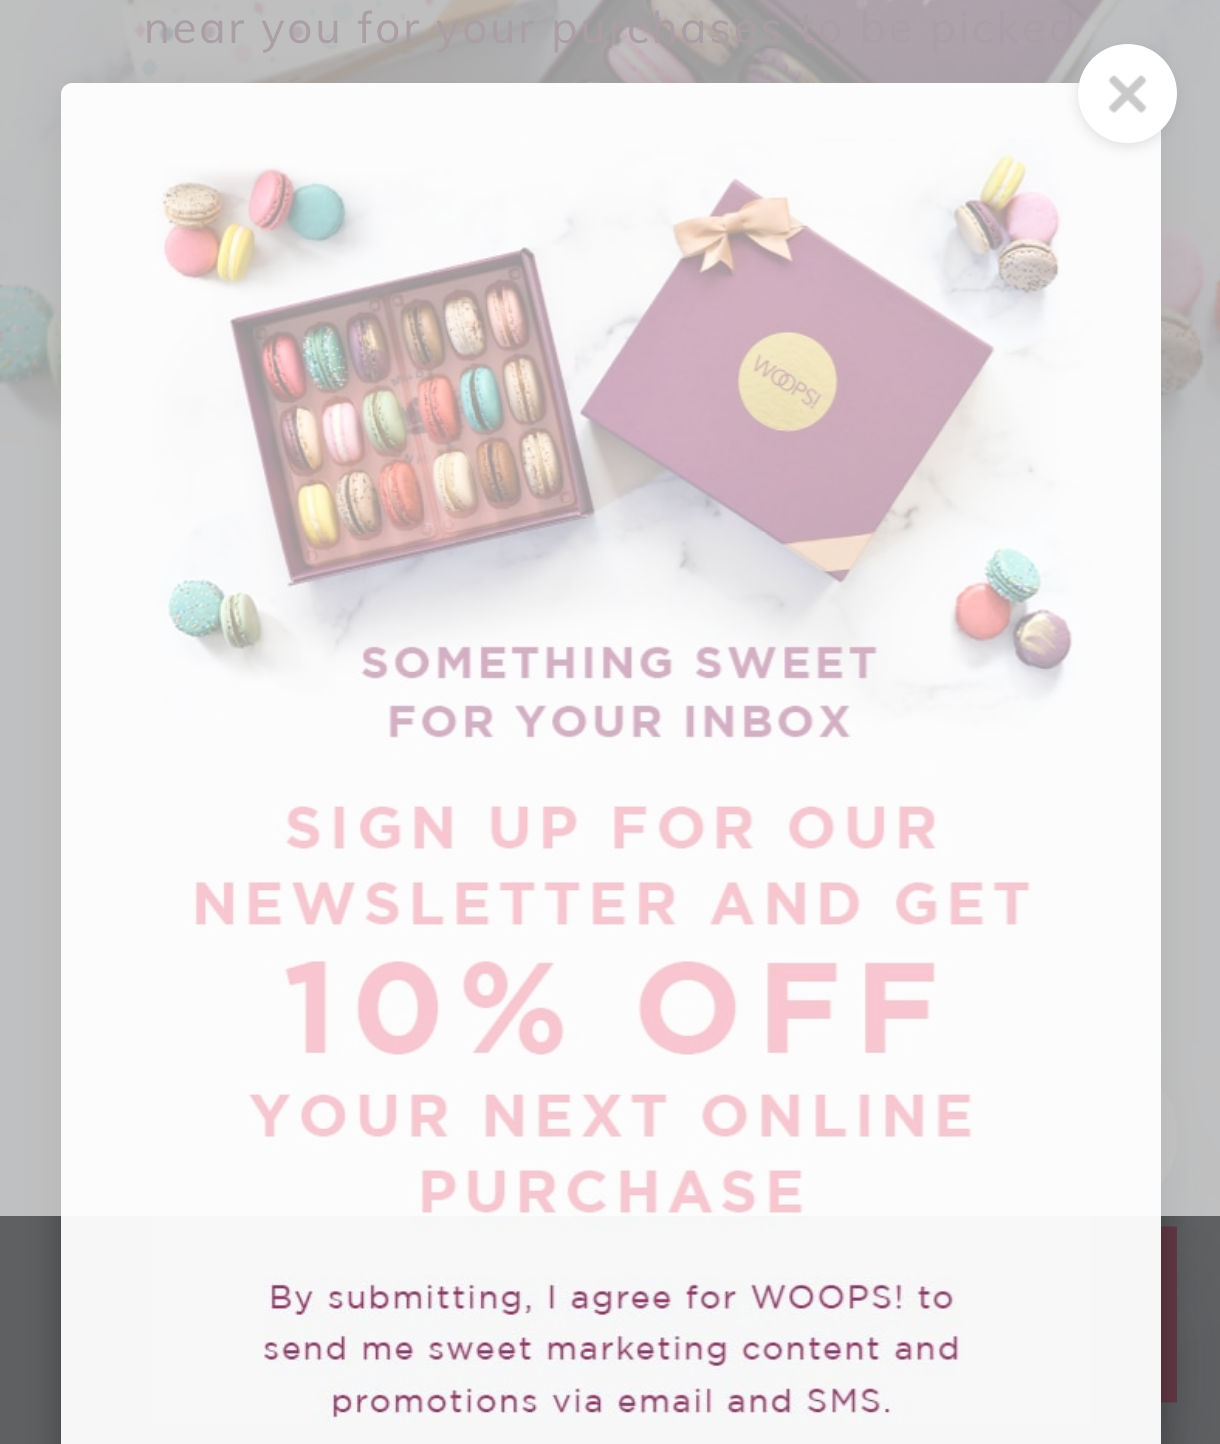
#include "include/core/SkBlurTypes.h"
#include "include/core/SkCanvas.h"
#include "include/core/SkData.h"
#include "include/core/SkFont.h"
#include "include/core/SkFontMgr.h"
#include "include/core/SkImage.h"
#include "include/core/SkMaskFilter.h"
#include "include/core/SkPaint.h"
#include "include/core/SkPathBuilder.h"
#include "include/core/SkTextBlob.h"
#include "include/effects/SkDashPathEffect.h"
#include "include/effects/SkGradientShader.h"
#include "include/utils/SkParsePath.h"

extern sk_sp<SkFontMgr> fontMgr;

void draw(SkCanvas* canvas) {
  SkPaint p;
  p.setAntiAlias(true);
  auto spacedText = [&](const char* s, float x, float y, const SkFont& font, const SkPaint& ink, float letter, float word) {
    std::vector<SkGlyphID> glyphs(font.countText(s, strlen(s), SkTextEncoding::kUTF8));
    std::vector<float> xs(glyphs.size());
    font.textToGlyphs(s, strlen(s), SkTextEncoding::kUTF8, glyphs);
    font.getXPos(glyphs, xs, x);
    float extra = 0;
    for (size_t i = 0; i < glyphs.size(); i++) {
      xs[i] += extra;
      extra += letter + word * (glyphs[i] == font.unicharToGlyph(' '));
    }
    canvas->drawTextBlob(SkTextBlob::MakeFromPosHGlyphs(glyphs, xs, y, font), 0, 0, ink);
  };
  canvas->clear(SkColorSetRGB(95, 96, 98));
  canvas->drawImageRect(SkImages::DeferredFromEncodedData(SkData::MakeFromFileName("images/1.png")), SkRect::MakeLTRB(0, 0, 1220, 541), SkSamplingOptions());
  p.setColor(SkColorSetARGB(38, 9, 29, 31));
  p.setMaskFilter(SkMaskFilter::MakeBlur(kNormal_SkBlurStyle, 41));
  canvas->drawRoundRect(SkRect::MakeLTRB(718, 1122, 1177, 1260), 63, 63, p);
  p.setMaskFilter(nullptr);
  canvas->drawImageRect(SkImages::DeferredFromEncodedData(SkData::MakeFromFileName("images/4.png")), SkRect::MakeLTRB(1161, 1088, 1177, 1183), SkSamplingOptions());
  p.setMaskFilter(SkMaskFilter::MakeBlur(kNormal_SkBlurStyle, 41));
  canvas->drawRect(SkRect::MakeLTRB(1001, 1282, 1177, 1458), p);
  p.setMaskFilter(nullptr);
  canvas->drawImageRect(SkImages::DeferredFromEncodedData(SkData::MakeFromFileName("images/5.png")), SkRect::MakeLTRB(1161, 1226, 1177, 1403), SkSamplingOptions());
  p.setColor(SkColorSetARGB(77, 0, 0, 0));
  p.setMaskFilter(SkMaskFilter::MakeBlur(kNormal_SkBlurStyle, 18));
  canvas->drawRoundRect(SkRect::MakeLTRB(61, 85, 1161, 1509), 11, 11, p);
  p.setMaskFilter(nullptr);
  p.setColor(SkColorSetRGB(247, 247, 247));
  canvas->drawPath(SkPathBuilder().moveTo(72, 83).lineTo(1150, 83).cubicTo(1156, 83, 1161, 88, 1161, 94).lineTo(1161, 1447).lineTo(61, 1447).lineTo(61, 94).cubicTo(61, 88, 66, 83, 72, 83).close().detach(), p);
  canvas->drawImageRect(SkImages::DeferredFromEncodedData(SkData::MakeFromFileName("images/3.png")), SkRect::MakeLTRB(153, 138, 1092, 1424), SkSamplingOptions());
  p.setColor(SkColorSetARGB(77, 0, 0, 0));
  p.setMaskFilter(SkMaskFilter::MakeBlur(kNormal_SkBlurStyle, 7));
  canvas->drawRoundRect(SkRect::MakeLTRB(1078, 47, 1177, 146), 49.5f, 49.5f, p);
  p.setMaskFilter(nullptr);
  p.setColor(SK_ColorWHITE);
  canvas->drawCircle(1127.5f, 93.5f, 49.5f, p);
  canvas->drawImageRect(SkImages::DeferredFromEncodedData(SkData::MakeFromFileName("images/2.png")), SkRect::MakeLTRB(1107, 75, 1148, 113), SkSamplingOptions());
  SkFont font1(fontMgr->matchFamilyStyle("Muli", SkFontStyle::Normal()), 44);
  font1.setSubpixel(true);
  p.setColor(SkColorSetRGB(43, 12, 28));
  spacedText("near you for your purchases to be picked", 144, 43, font1, p, 2.75f, 0);
  p.setColor(SkColorSetARGB(153, 255, 255, 255));
  canvas->drawRect(SkRect::MakeLTRB(0, 0, 1220, 1216), p);
}
